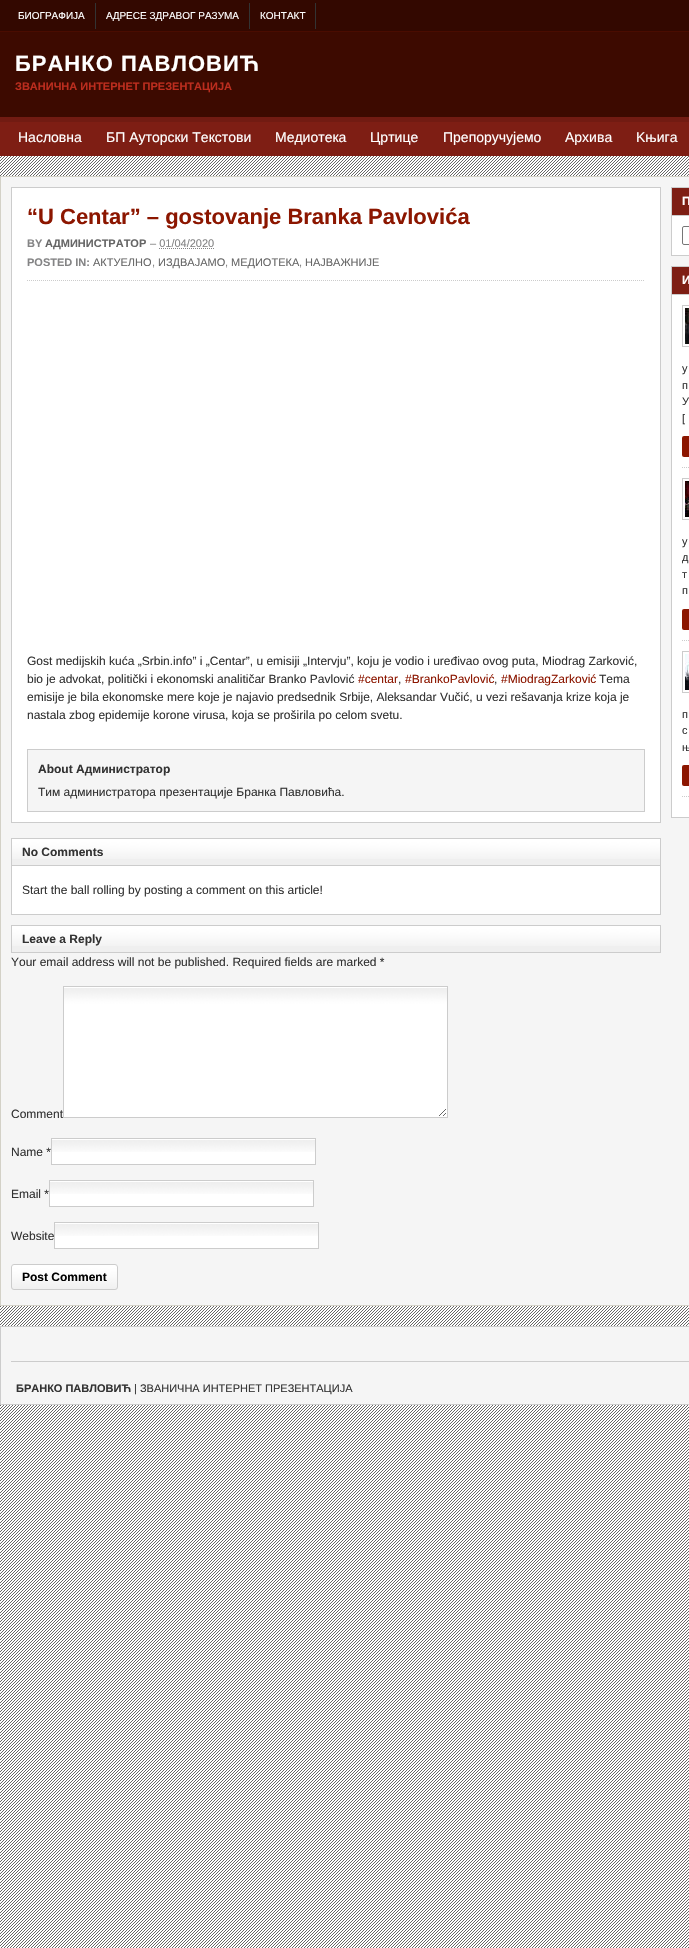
#include "include/core/SkBlurTypes.h"
#include "include/core/SkCanvas.h"
#include "include/core/SkData.h"
#include "include/core/SkFont.h"
#include "include/core/SkFontMgr.h"
#include "include/core/SkImage.h"
#include "include/core/SkMaskFilter.h"
#include "include/core/SkPaint.h"
#include "include/core/SkPathBuilder.h"
#include "include/core/SkTextBlob.h"
#include "include/effects/SkDashPathEffect.h"
#include "include/effects/SkGradientShader.h"
#include "include/utils/SkParsePath.h"

extern sk_sp<SkFontMgr> fontMgr;

void draw(SkCanvas* canvas) {
  SkPaint p;
  p.setAntiAlias(true);
  auto spacedText = [&](const char* s, float x, float y, const SkFont& font, const SkPaint& ink, float letter, float word) {
    std::vector<SkGlyphID> glyphs(font.countText(s, strlen(s), SkTextEncoding::kUTF8));
    std::vector<float> xs(glyphs.size());
    font.textToGlyphs(s, strlen(s), SkTextEncoding::kUTF8, glyphs);
    font.getXPos(glyphs, xs, x);
    float extra = 0;
    for (size_t i = 0; i < glyphs.size(); i++) {
      xs[i] += extra;
      extra += letter + word * (glyphs[i] == font.unicharToGlyph(' '));
    }
    canvas->drawTextBlob(SkTextBlob::MakeFromPosHGlyphs(glyphs, xs, y, font), 0, 0, ink);
  };
  canvas->clear(SkColorSetRGB(51, 8, 0));
  p.setColor(SkColorSetRGB(74, 12, 0));
  canvas->drawRect(SkRect::MakeLTRB(0, 31, 689, 32), p);
  p.setColor(SkColorSetRGB(51, 51, 51));
  canvas->drawRect(SkRect::MakeLTRB(95, 3, 96, 29), p);
  canvas->drawRect(SkRect::MakeLTRB(249, 3, 250, 29), p);
  canvas->drawRect(SkRect::MakeLTRB(315, 3, 316, 29), p);
  p.setColor(SkColorSetRGB(61, 10, 0));
  canvas->drawRect(SkRect::MakeLTRB(0, 32, 689, 117), p);
  p.setColor(SkColorSetRGB(114, 27, 18));
  canvas->drawRect(SkRect::MakeLTRB(0, 117, 689, 122), p);
  p.setColor(SkColorSetRGB(126, 30, 20));
  canvas->drawRect(SkRect::MakeLTRB(0, 122, 689, 156), p);
  canvas->drawImageRect(SkImages::DeferredFromEncodedData(SkData::MakeFromFileName("images/1.png")), SkRect::MakeLTRB(0, 156, 689, 1948), SkSamplingOptions());
  p.setColor(SkColorSetRGB(245, 245, 245));
  canvas->drawRect(SkRect::MakeLTRB(0.5f, 176.5f, 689.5f, 1305.5f), p);
  p.setStyle(SkPaint::kStroke_Style);
  p.setStrokeWidth(1);
  p.setColor(SkColorSetRGB(211, 209, 199));
  canvas->drawRect(SkRect::MakeLTRB(0.5f, 176.5f, 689.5f, 1305.5f), p);
  p.setStyle(SkPaint::kFill_Style);
  p.setColor(SK_ColorWHITE);
  canvas->drawRect(SkRect::MakeLTRB(11.5f, 187.5f, 660.5f, 822.5f), p);
  p.setStyle(SkPaint::kStroke_Style);
  p.setColor(SkColorSetRGB(204, 204, 204));
  canvas->drawRect(SkRect::MakeLTRB(11.5f, 187.5f, 660.5f, 822.5f), p);
  p.setPathEffect(SkDashPathEffect::Make({{1, 1}}, 0));
  canvas->drawPath(SkPathBuilder().moveTo(27, 280.5f).lineTo(645, 280.5f).detach(), p);
  p.setPathEffect(nullptr);
  p.setColor(SkColorSetRGB(132, 132, 133));
  p.setPathEffect(SkDashPathEffect::Make({{1, 1}}, 0));
  canvas->drawPath(SkPathBuilder().moveTo(159, 248.5f).lineTo(214, 248.5f).detach(), p);
  p.setPathEffect(nullptr);
  p.setStyle(SkPaint::kFill_Style);
  p.setColor(SkColorSetRGB(245, 245, 245));
  canvas->drawRect(SkRect::MakeLTRB(27.5f, 749.5f, 644.5f, 811.5f), p);
  p.setStyle(SkPaint::kStroke_Style);
  p.setColor(SkColorSetRGB(204, 204, 204));
  canvas->drawRect(SkRect::MakeLTRB(27.5f, 749.5f, 644.5f, 811.5f), p);
  p.setStyle(SkPaint::kFill_Style);
  p.setColor(SkColorSetRGB(239, 239, 239));
  canvas->drawRect(SkRect::MakeLTRB(12, 859, 660, 865), p);
  canvas->drawImageRect(SkImages::DeferredFromEncodedData(SkData::MakeFromFileName("images/2.png")), SkRect::MakeLTRB(12, 839, 660, 859), SkSamplingOptions());
  p.setStyle(SkPaint::kStroke_Style);
  p.setColor(SkColorSetRGB(204, 204, 204));
  canvas->drawRect(SkRect::MakeLTRB(11.5f, 838.5f, 660.5f, 865.5f), p);
  p.setStyle(SkPaint::kFill_Style);
  p.setColor(SK_ColorWHITE);
  canvas->drawRect(SkRect::MakeLTRB(12, 866, 660, 914), p);
  p.setColor(SkColorSetRGB(204, 204, 204));
  canvas->drawRect(SkRect::MakeLTRB(660, 866, 661, 915), p);
  canvas->drawRect(SkRect::MakeLTRB(11, 914, 661, 915), p);
  canvas->drawRect(SkRect::MakeLTRB(11, 866, 12, 915), p);
  p.setColor(SkColorSetRGB(239, 239, 239));
  canvas->drawRect(SkRect::MakeLTRB(12, 946, 660, 952), p);
  canvas->drawImageRect(SkImages::DeferredFromEncodedData(SkData::MakeFromFileName("images/2.png")), SkRect::MakeLTRB(12, 926, 660, 946), SkSamplingOptions());
  p.setStyle(SkPaint::kStroke_Style);
  p.setColor(SkColorSetRGB(204, 204, 204));
  canvas->drawRect(SkRect::MakeLTRB(11.5f, 925.5f, 660.5f, 952.5f), p);
  p.setStyle(SkPaint::kFill_Style);
  p.setColor(SK_ColorWHITE);
  canvas->drawRect(SkRect::MakeLTRB(64, 987, 447, 1117), p);
  canvas->drawImageRect(SkImages::DeferredFromEncodedData(SkData::MakeFromFileName("images/3.png")), SkRect::MakeLTRB(64, 988, 447, 1116), SkSamplingOptions());
  p.setStyle(SkPaint::kStroke_Style);
  p.setColor(SkColorSetRGB(204, 204, 204));
  canvas->drawRect(SkRect::MakeLTRB(63.5f, 986.5f, 447.5f, 1117.5f), p);
  p.setStyle(SkPaint::kFill_Style);
  p.setColor(SK_ColorWHITE);
  canvas->drawRect(SkRect::MakeLTRB(52, 1139, 315, 1164), p);
  canvas->drawImageRect(SkImages::DeferredFromEncodedData(SkData::MakeFromFileName("images/4.png")), SkRect::MakeLTRB(52, 1140, 315, 1152), SkSamplingOptions());
  p.setStyle(SkPaint::kStroke_Style);
  p.setColor(SkColorSetRGB(204, 204, 204));
  canvas->drawRect(SkRect::MakeLTRB(51.5f, 1138.5f, 315.5f, 1164.5f), p);
  p.setStyle(SkPaint::kFill_Style);
  p.setColor(SK_ColorWHITE);
  canvas->drawRect(SkRect::MakeLTRB(50, 1181, 313, 1206), p);
  canvas->drawImageRect(SkImages::DeferredFromEncodedData(SkData::MakeFromFileName("images/4.png")), SkRect::MakeLTRB(50, 1182, 313, 1194), SkSamplingOptions());
  p.setStyle(SkPaint::kStroke_Style);
  p.setColor(SkColorSetRGB(204, 204, 204));
  canvas->drawRect(SkRect::MakeLTRB(49.5f, 1180.5f, 313.5f, 1206.5f), p);
  p.setStyle(SkPaint::kFill_Style);
  p.setColor(SK_ColorWHITE);
  canvas->drawRect(SkRect::MakeLTRB(55, 1223, 318, 1248), p);
  canvas->drawImageRect(SkImages::DeferredFromEncodedData(SkData::MakeFromFileName("images/4.png")), SkRect::MakeLTRB(55, 1224, 318, 1236), SkSamplingOptions());
  p.setStyle(SkPaint::kStroke_Style);
  p.setColor(SkColorSetRGB(204, 204, 204));
  canvas->drawRect(SkRect::MakeLTRB(54.5f, 1222.5f, 318.5f, 1248.5f), p);
  canvas->drawImageRect(SkImages::DeferredFromEncodedData(SkData::MakeFromFileName("images/5.png")), SkRect::MakeLTRB(11, 1265, 118, 1290), SkSamplingOptions());
  canvas->drawRoundRect(SkRect::MakeLTRB(11.5f, 1264.5f, 117.5f, 1289.5f), 2.5f, 2.5f, p);
  p.setStyle(SkPaint::kFill_Style);
  p.setColor(SK_ColorWHITE);
  canvas->drawRect(SkRect::MakeLTRB(672, 216, 689, 255), p);
  p.setStyle(SkPaint::kStroke_Style);
  p.setColor(SkColorSetRGB(204, 204, 204));
  canvas->drawRect(SkRect::MakeLTRB(671.5f, 187.5f, 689.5f, 255.5f), p);
  p.setStyle(SkPaint::kFill_Style);
  p.setColor(SkColorSetRGB(126, 30, 20));
  canvas->drawRect(SkRect::MakeLTRB(672, 188, 689, 215), p);
  p.setColor(SkColorSetRGB(204, 204, 204));
  canvas->drawRect(SkRect::MakeLTRB(672, 215, 689, 216), p);
  p.setStyle(SkPaint::kStroke_Style);
  p.setColor(SkColorSetRGB(118, 118, 118));
  canvas->drawRoundRect(SkRect::MakeLTRB(682.5f, 226.5f, 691.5f, 244.5f), 1.5f, 1.5f, p);
  p.setStyle(SkPaint::kFill_Style);
  p.setColor(SK_ColorWHITE);
  canvas->drawRect(SkRect::MakeLTRB(672, 295, 689, 817), p);
  p.setStyle(SkPaint::kStroke_Style);
  p.setColor(SkColorSetRGB(204, 204, 204));
  canvas->drawRect(SkRect::MakeLTRB(671.5f, 266.5f, 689.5f, 817.5f), p);
  p.setStyle(SkPaint::kFill_Style);
  p.setColor(SkColorSetRGB(126, 30, 20));
  canvas->drawRect(SkRect::MakeLTRB(672, 267, 689, 294), p);
  p.setColor(SkColorSetRGB(204, 204, 204));
  canvas->drawRect(SkRect::MakeLTRB(672, 294, 689, 295), p);
  p.setStyle(SkPaint::kStroke_Style);
  p.setPathEffect(SkDashPathEffect::Make({{1, 1}}, 0));
  canvas->drawPath(SkPathBuilder().moveTo(682, 467.5f).lineTo(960, 467.5f).detach(), p);
  p.setPathEffect(nullptr);
  canvas->drawRect(SkRect::MakeLTRB(682.5f, 305.5f, 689.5f, 346.5f), p);
  canvas->drawImageRect(SkImages::DeferredFromEncodedData(SkData::MakeFromFileName("images/6.png")), SkRect::MakeLTRB(685, 308, 689, 344), SkSamplingOptions());
  p.setStyle(SkPaint::kFill_Style);
  p.setColor(SkColorSetRGB(140, 22, 0));
  canvas->drawRoundRect(SkRect::MakeLTRB(682, 436, 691, 457), 2, 2, p);
  p.setStyle(SkPaint::kStroke_Style);
  p.setColor(SkColorSetRGB(204, 204, 204));
  p.setPathEffect(SkDashPathEffect::Make({{1, 1}}, 0));
  canvas->drawPath(SkPathBuilder().moveTo(682, 640.5f).lineTo(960, 640.5f).detach(), p);
  p.setPathEffect(nullptr);
  canvas->drawRect(SkRect::MakeLTRB(682.5f, 478.5f, 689.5f, 519.5f), p);
  canvas->drawImageRect(SkImages::DeferredFromEncodedData(SkData::MakeFromFileName("images/7.png")), SkRect::MakeLTRB(685, 481, 689, 517), SkSamplingOptions());
  p.setStyle(SkPaint::kFill_Style);
  p.setColor(SkColorSetRGB(140, 22, 0));
  canvas->drawRoundRect(SkRect::MakeLTRB(682, 609, 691, 630), 2, 2, p);
  p.setStyle(SkPaint::kStroke_Style);
  p.setColor(SkColorSetRGB(204, 204, 204));
  p.setPathEffect(SkDashPathEffect::Make({{1, 1}}, 0));
  canvas->drawPath(SkPathBuilder().moveTo(682, 796.5f).lineTo(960, 796.5f).detach(), p);
  p.setPathEffect(nullptr);
  canvas->drawRect(SkRect::MakeLTRB(682.5f, 651.5f, 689.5f, 692.5f), p);
  canvas->drawImageRect(SkImages::DeferredFromEncodedData(SkData::MakeFromFileName("images/8.png")), SkRect::MakeLTRB(685, 654, 689, 690), SkSamplingOptions());
  p.setStyle(SkPaint::kFill_Style);
  p.setColor(SkColorSetRGB(140, 22, 0));
  canvas->drawRoundRect(SkRect::MakeLTRB(682, 765, 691, 786), 2, 2, p);
  p.setColor(SkColorSetRGB(245, 245, 245));
  canvas->drawRect(SkRect::MakeLTRB(0.5f, 1326.5f, 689.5f, 1404.5f), p);
  p.setStyle(SkPaint::kStroke_Style);
  p.setColor(SkColorSetRGB(204, 204, 204));
  canvas->drawRect(SkRect::MakeLTRB(0.5f, 1326.5f, 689.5f, 1404.5f), p);
  p.setStyle(SkPaint::kFill_Style);
  canvas->drawRect(SkRect::MakeLTRB(11, 1361, 689, 1362), p);
  SkFont font1(fontMgr->matchFamilyStyle("Liberation Sans", SkFontStyle::Normal()), 10);
  font1.setSubpixel(true);
  p.setColor(SK_ColorWHITE);
  canvas->drawString("БИОГРАФИЈА", 18, 19, font1, p);
  canvas->drawString("АДРЕСЕ ЗДРАВОГ РАЗУМА", 106, 19, font1, p);
  canvas->drawString("КОНТАКТ", 260, 19, font1, p);
  SkFont font2(fontMgr->matchFamilyStyle("Liberation Sans", SkFontStyle::Bold()), 22);
  font2.setSubpixel(true);
  spacedText("БРАНКО ПАВЛОВИЋ", 15, 71, font2, p, 1, 0);
  SkFont font3(fontMgr->matchFamilyStyle("Liberation Sans", SkFontStyle::Bold()), 11);
  font3.setSubpixel(true);
  p.setColor(SkColorSetRGB(188, 45, 30));
  canvas->drawString("ЗВАНИЧНА ИНТЕРНЕТ ПРЕЗЕНТАЦИЈА", 15, 90, font3, p);
  SkFont font4(fontMgr->matchFamilyStyle("Liberation Sans", SkFontStyle::Normal()), 14);
  font4.setSubpixel(true);
  p.setColor(SK_ColorWHITE);
  canvas->drawString("Насловна", 18, 142, font4, p);
  canvas->drawString("БП Ауторски Текстови", 106, 142, font4, p);
  canvas->drawString("Медиотека", 275, 142, font4, p);
  canvas->drawString("Цртице", 370, 142, font4, p);
  canvas->drawString("Препоручујемо", 443, 142, font4, p);
  canvas->drawString("Архива", 565, 142, font4, p);
  canvas->drawString("Kњига", 636, 142, font4, p);
  p.setColor(SkColorSetRGB(140, 22, 0));
  canvas->drawString("“U Centar” – gostovanje Branka Pavlovića", 27, 224, font2, p);
  p.setColor(SkColorSetRGB(132, 132, 133));
  canvas->drawString("BY", 27, 247, font3, p);
  p.setColor(SkColorSetRGB(102, 102, 102));
  canvas->drawString("АДМИНИСТРАТОР", 45, 247, font3, p);
  SkFont font5(fontMgr->matchFamilyStyle("Liberation Sans", SkFontStyle::Normal()), 11);
  font5.setSubpixel(true);
  p.setColor(SkColorSetRGB(132, 132, 133));
  canvas->drawString("– 01/04/2020", 150, 247, font5, p);
  canvas->drawString("POSTED IN:", 27, 266, font3, p);
  p.setColor(SkColorSetRGB(102, 102, 102));
  canvas->drawString("АКТУЕЛНО", 93, 266, font5, p);
  p.setColor(SkColorSetRGB(132, 132, 133));
  canvas->drawString(",", 152, 266, font5, p);
  p.setColor(SkColorSetRGB(102, 102, 102));
  canvas->drawString("ИЗДВАЈАМО", 158, 266, font5, p);
  p.setColor(SkColorSetRGB(132, 132, 133));
  canvas->drawString(",", 225, 266, font5, p);
  p.setColor(SkColorSetRGB(102, 102, 102));
  canvas->drawString("МЕДИОТЕКА", 231, 266, font5, p);
  p.setColor(SkColorSetRGB(132, 132, 133));
  canvas->drawString(",", 299, 266, font5, p);
  p.setColor(SkColorSetRGB(102, 102, 102));
  canvas->drawString("НАЈВАЖНИЈЕ", 305, 266, font5, p);
  SkFont font6(fontMgr->matchFamilyStyle("Liberation Sans", SkFontStyle::Normal()), 12);
  font6.setSubpixel(true);
  p.setColor(SkColorSetRGB(51, 51, 51));
  canvas->drawString("Gost medijskih kuća „Srbin.info” i „Centar”, u emisiji „Intervju”, koju je vodio i uređivao ovog puta, Miodrag Zarković,", 27, 665, font6, p);
  canvas->drawString("bio je advokat, politički i ekonomski analitičar Branko Pavlović", 27, 683, font6, p);
  p.setColor(SkColorSetRGB(140, 22, 0));
  canvas->drawString("#centar", 358, 683, font6, p);
  p.setColor(SkColorSetRGB(51, 51, 51));
  canvas->drawString(",", 398, 683, font6, p);
  p.setColor(SkColorSetRGB(140, 22, 0));
  canvas->drawString("#BrankoPavlović", 405, 683, font6, p);
  p.setColor(SkColorSetRGB(51, 51, 51));
  canvas->drawString(",", 494, 683, font6, p);
  p.setColor(SkColorSetRGB(140, 22, 0));
  canvas->drawString("#MiodragZarković", 501, 683, font6, p);
  p.setColor(SkColorSetRGB(51, 51, 51));
  canvas->drawString("Tema", 599, 683, font6, p);
  canvas->drawString("emisije je bila ekonomske mere koje je najavio predsednik Srbije, Aleksandar Vučić, u vezi rešavanja krize koja je", 27, 701, font6, p);
  canvas->drawString("nastala zbog epidemije korone virusa, koja se proširila po celom svetu.", 27, 719, font6, p);
  SkFont font7(fontMgr->matchFamilyStyle("Liberation Sans", SkFontStyle::Bold()), 12);
  font7.setSubpixel(true);
  canvas->drawString("About Администратор", 38, 773, font7, p);
  canvas->drawString("Тим администратора презентације Бранка Павловића.", 38, 796, font6, p);
  canvas->drawString("No Comments", 22, 856, font7, p);
  canvas->drawString("Start the ball rolling by posting a comment on this article!", 22, 894, font6, p);
  canvas->drawString("Leave a Reply", 22, 943, font7, p);
  canvas->drawString("Your email address will not be published. Required fields are marked *", 11, 966, font6, p);
  canvas->drawString("Comment", 11, 1118, font6, p);
  canvas->drawString("Name *", 11, 1156, font6, p);
  canvas->drawString("Email *", 11, 1198, font6, p);
  canvas->drawString("Website", 11, 1240, font6, p);
  p.setColor(SK_ColorBLACK);
  canvas->drawString("Post Comment", 22, 1281, font7, p);
  p.setColor(SK_ColorWHITE);
  canvas->drawString("П", 682, 205, font7, p);
  canvas->drawString("И", 682, 284, font7, p);
  p.setColor(SkColorSetRGB(51, 51, 51));
  canvas->drawString("у", 682, 372, font5, p);
  canvas->drawString("п", 682, 389, font5, p);
  canvas->drawString("У", 682, 405, font5, p);
  canvas->drawString("[", 682, 422, font5, p);
  canvas->drawString("у", 682, 545, font5, p);
  canvas->drawString("д", 682, 561, font5, p);
  canvas->drawString("т", 682, 578, font5, p);
  canvas->drawString("п", 682, 594, font5, p);
  canvas->drawString("п", 682, 718, font5, p);
  canvas->drawString("с", 682, 734, font5, p);
  canvas->drawString("њ", 682, 751, font5, p);
  canvas->drawString("БРАНКО ПАВЛОВИЋ", 16, 1392, font3, p);
  canvas->drawString("| ЗВАНИЧНА ИНТЕРНЕТ ПРЕЗЕНТАЦИЈА", 134, 1392, font5, p);
}
